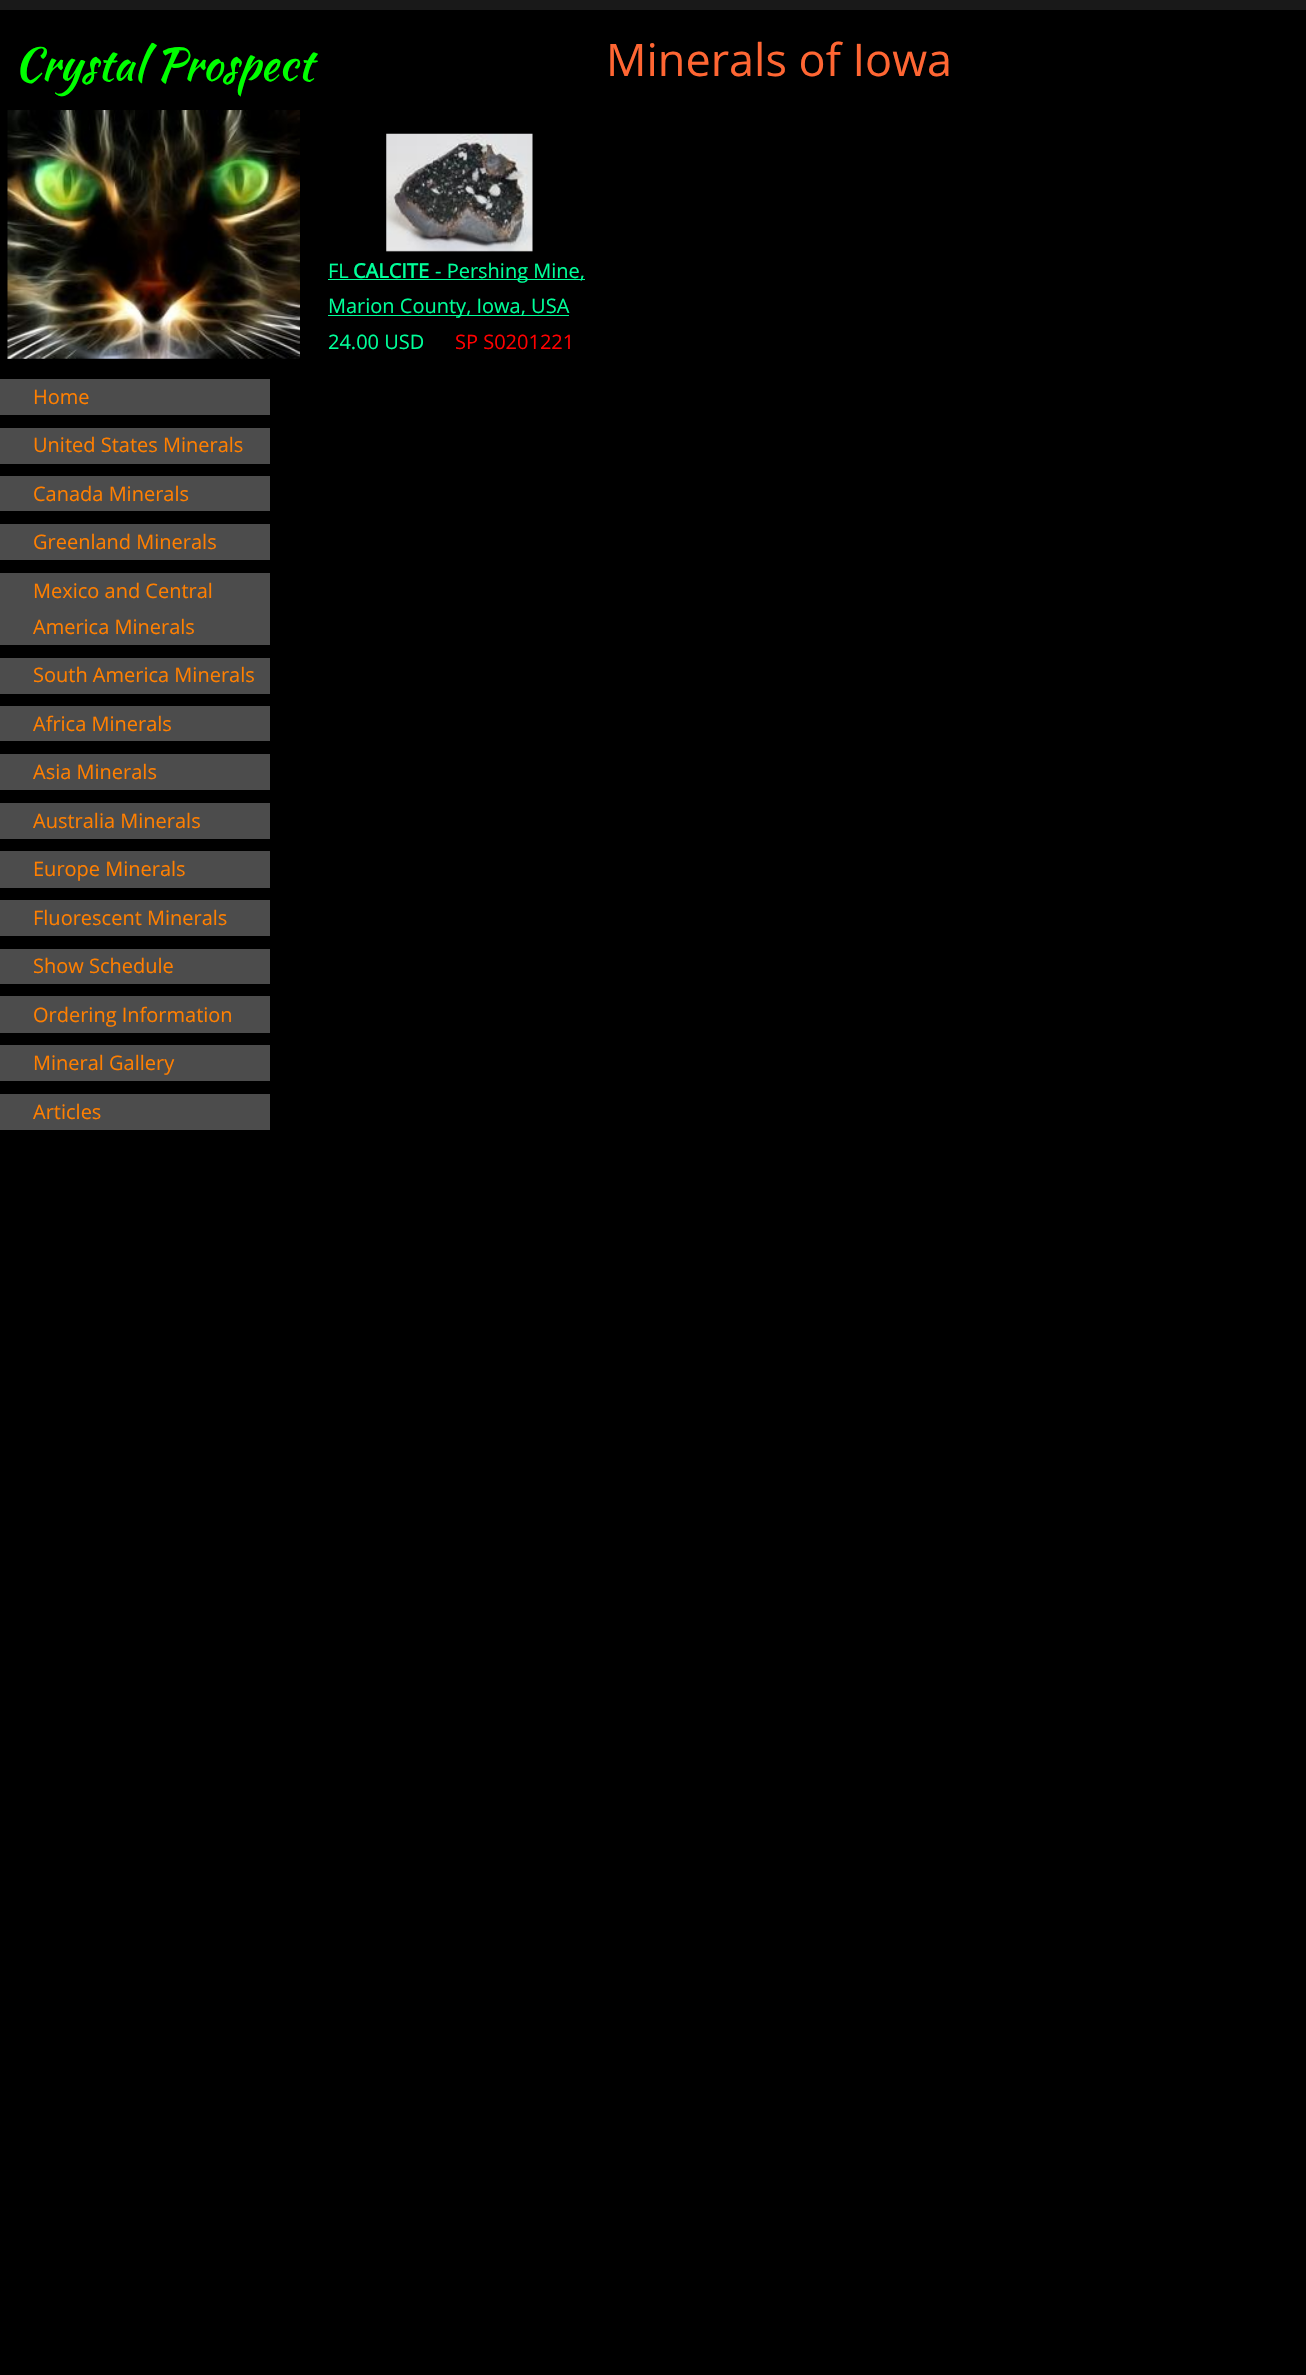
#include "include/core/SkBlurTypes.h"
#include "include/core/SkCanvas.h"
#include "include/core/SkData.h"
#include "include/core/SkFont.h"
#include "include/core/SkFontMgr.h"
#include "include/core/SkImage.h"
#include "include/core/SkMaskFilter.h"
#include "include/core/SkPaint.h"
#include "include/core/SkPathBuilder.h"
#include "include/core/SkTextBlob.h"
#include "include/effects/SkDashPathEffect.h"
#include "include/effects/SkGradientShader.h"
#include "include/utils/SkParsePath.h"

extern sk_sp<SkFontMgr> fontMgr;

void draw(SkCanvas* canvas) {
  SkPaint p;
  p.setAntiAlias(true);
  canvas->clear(SkColorSetRGB(25, 25, 25));
  p.setColor(SK_ColorBLACK);
  canvas->drawRect(SkRect::MakeLTRB(0, 10, 1306, 2375), p);
  canvas->drawImageRect(SkImages::DeferredFromEncodedData(SkData::MakeFromFileName("images/1.png")), SkRect::MakeLTRB(7, 110, 300, 359), SkSamplingOptions());
  canvas->drawImageRect(SkImages::DeferredFromEncodedData(SkData::MakeFromFileName("images/2.png")), SkRect::MakeLTRB(386, 133, 533, 252), SkSamplingOptions());
  p.setColor(SkColorSetRGB(0, 255, 153));
  canvas->drawRect(SkRect::MakeLTRB(328, 279, 585, 280), p);
  canvas->drawRect(SkRect::MakeLTRB(328, 315, 569, 316), p);
  p.setColor(SkColorSetRGB(76, 76, 76));
  canvas->drawRect(SkRect::MakeLTRB(0, 379, 270, 415), p);
  canvas->drawRect(SkRect::MakeLTRB(0, 428, 270, 464), p);
  canvas->drawRect(SkRect::MakeLTRB(0, 476, 270, 511), p);
  canvas->drawRect(SkRect::MakeLTRB(0, 524, 270, 560), p);
  canvas->drawRect(SkRect::MakeLTRB(0, 573, 270, 645), p);
  canvas->drawRect(SkRect::MakeLTRB(0, 658, 270, 694), p);
  canvas->drawRect(SkRect::MakeLTRB(0, 706, 270, 741), p);
  canvas->drawRect(SkRect::MakeLTRB(0, 754, 270, 790), p);
  canvas->drawRect(SkRect::MakeLTRB(0, 803, 270, 839), p);
  canvas->drawRect(SkRect::MakeLTRB(0, 851, 270, 888), p);
  canvas->drawRect(SkRect::MakeLTRB(0, 900, 270, 936), p);
  canvas->drawRect(SkRect::MakeLTRB(0, 949, 270, 984), p);
  canvas->drawRect(SkRect::MakeLTRB(0, 996, 270, 1033), p);
  canvas->drawRect(SkRect::MakeLTRB(0, 1045, 270, 1081), p);
  canvas->drawRect(SkRect::MakeLTRB(0, 1094, 270, 1130), p);
  SkFont font1(fontMgr->matchFamilyStyle("Kaushan Script", SkFontStyle::Normal()), 45);
  font1.setSubpixel(true);
  p.setColor(SkColorSetRGB(0, 255, 0));
  canvas->drawString("Crystal Prospect", 14, 80, font1, p);
  SkFont font2(fontMgr->matchFamilyStyle("Open Sans", SkFontStyle::Normal()), 45);
  font2.setSubpixel(true);
  p.setColor(SkColorSetRGB(255, 102, 51));
  canvas->drawString("Minerals of Iowa", 606, 76, font2, p);
  SkFont font3(fontMgr->matchFamilyStyle("Open Sans", SkFontStyle::Normal()), 20);
  font3.setSubpixel(true);
  p.setColor(SkColorSetRGB(0, 255, 153));
  canvas->drawString("FL", 328, 278, font3, p);
  SkFont font4(fontMgr->matchFamilyStyle("Open Sans", SkFontStyle::Bold()), 20);
  font4.setSubpixel(true);
  canvas->drawString("CALCITE", 353, 278, font4, p);
  canvas->drawString("- Pershing Mine,", 435, 278, font3, p);
  canvas->drawString("Marion County, Iowa, USA", 328, 313, font3, p);
  canvas->drawString("24.00 USD", 328, 349, font3, p);
  p.setColor(SkColorSetRGB(255, 0, 0));
  canvas->drawString("SP S0201221", 455, 349, font3, p);
  p.setColor(SkColorSetRGB(255, 127, 0));
  canvas->drawString("Home", 33, 404, font3, p);
  canvas->drawString("United States Minerals", 33, 452, font3, p);
  canvas->drawString("Canada Minerals", 33, 501, font3, p);
  canvas->drawString("Greenland Minerals", 33, 549, font3, p);
  canvas->drawString("Mexico and Central", 33, 598, font3, p);
  canvas->drawString("America Minerals", 33, 634, font3, p);
  canvas->drawString("South America Minerals", 33, 682, font3, p);
  canvas->drawString("Africa Minerals", 33, 731, font3, p);
  canvas->drawString("Asia Minerals", 33, 779, font3, p);
  canvas->drawString("Australia Minerals", 33, 828, font3, p);
  canvas->drawString("Europe Minerals", 33, 876, font3, p);
  canvas->drawString("Fluorescent Minerals", 33, 925, font3, p);
  canvas->drawString("Show Schedule", 33, 973, font3, p);
  canvas->drawString("Ordering Information", 33, 1022, font3, p);
  canvas->drawString("Mineral Gallery", 33, 1070, font3, p);
  canvas->drawString("Articles", 33, 1119, font3, p);
}
